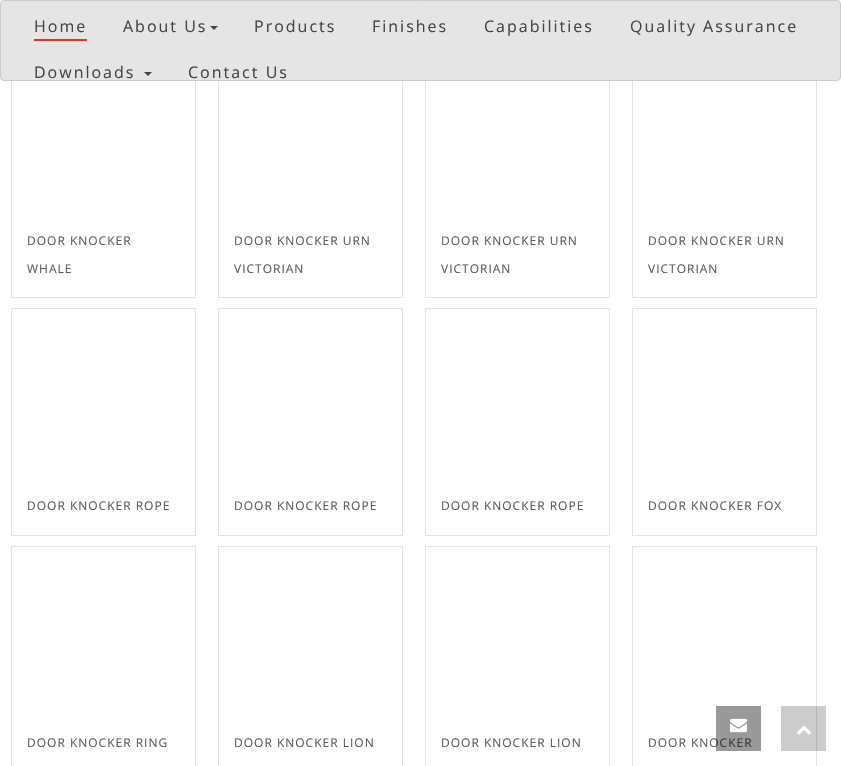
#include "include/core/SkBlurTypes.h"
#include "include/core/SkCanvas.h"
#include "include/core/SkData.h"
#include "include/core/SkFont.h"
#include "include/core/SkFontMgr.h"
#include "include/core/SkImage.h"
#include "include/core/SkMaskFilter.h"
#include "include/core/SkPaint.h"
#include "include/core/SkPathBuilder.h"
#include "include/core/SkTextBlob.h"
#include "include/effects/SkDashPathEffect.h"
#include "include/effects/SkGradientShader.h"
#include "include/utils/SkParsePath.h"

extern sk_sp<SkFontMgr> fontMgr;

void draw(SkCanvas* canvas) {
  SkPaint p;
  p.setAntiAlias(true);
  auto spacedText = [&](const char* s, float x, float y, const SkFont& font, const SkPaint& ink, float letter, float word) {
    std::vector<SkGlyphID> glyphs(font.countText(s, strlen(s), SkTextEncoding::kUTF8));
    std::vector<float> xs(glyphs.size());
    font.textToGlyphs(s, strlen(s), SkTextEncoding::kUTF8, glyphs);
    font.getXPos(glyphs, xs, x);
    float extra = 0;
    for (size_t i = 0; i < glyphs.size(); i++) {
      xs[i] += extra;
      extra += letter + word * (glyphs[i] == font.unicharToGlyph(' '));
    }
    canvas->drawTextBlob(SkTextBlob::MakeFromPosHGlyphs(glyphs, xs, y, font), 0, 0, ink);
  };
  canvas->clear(SK_ColorWHITE);
  p.setStyle(SkPaint::kStroke_Style);
  p.setStrokeWidth(1);
  p.setColor(SkColorSetRGB(227, 227, 227));
  canvas->drawRect(SkRect::MakeLTRB(11.5f, 44.5f, 195.5f, 297.5f), p);
  canvas->drawRect(SkRect::MakeLTRB(218.5f, 44.5f, 402.5f, 297.5f), p);
  canvas->drawRect(SkRect::MakeLTRB(425.5f, 44.5f, 609.5f, 297.5f), p);
  canvas->drawRect(SkRect::MakeLTRB(632.5f, 44.5f, 816.5f, 297.5f), p);
  p.setStyle(SkPaint::kFill_Style);
  p.setColor(SkColorSetRGB(229, 229, 229));
  canvas->drawRoundRect(SkRect::MakeLTRB(0.5f, 0.5f, 840.5f, 80.5f), 3.5f, 3.5f, p);
  p.setStyle(SkPaint::kStroke_Style);
  p.setColor(SkColorSetRGB(204, 204, 204));
  canvas->drawRoundRect(SkRect::MakeLTRB(0.5f, 0.5f, 840.5f, 80.5f), 3.5f, 3.5f, p);
  p.setStyle(SkPaint::kFill_Style);
  p.setColor(SkColorSetRGB(221, 51, 51));
  canvas->drawRect(SkRect::MakeLTRB(34, 39, 87, 41), p);
  p.setColor(SkColorSetRGB(68, 68, 68));
  canvas->drawPath(SkPathBuilder().moveTo(210, 26).lineTo(218, 26).lineTo(214, 30).close().detach(), p);
  canvas->drawPath(SkPathBuilder().moveTo(144, 72).lineTo(152, 72).lineTo(148, 76).close().detach(), p);
  p.setStyle(SkPaint::kStroke_Style);
  p.setColor(SkColorSetRGB(227, 227, 227));
  canvas->drawRect(SkRect::MakeLTRB(11.5f, 308.5f, 195.5f, 535.5f), p);
  canvas->drawRect(SkRect::MakeLTRB(218.5f, 308.5f, 402.5f, 535.5f), p);
  canvas->drawRect(SkRect::MakeLTRB(425.5f, 308.5f, 609.5f, 535.5f), p);
  canvas->drawRect(SkRect::MakeLTRB(632.5f, 308.5f, 816.5f, 535.5f), p);
  canvas->drawRect(SkRect::MakeLTRB(11.5f, 546.5f, 195.5f, 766.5f), p);
  canvas->drawRect(SkRect::MakeLTRB(218.5f, 546.5f, 402.5f, 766.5f), p);
  canvas->drawRect(SkRect::MakeLTRB(425.5f, 546.5f, 609.5f, 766.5f), p);
  canvas->drawRect(SkRect::MakeLTRB(632.5f, 546.5f, 816.5f, 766.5f), p);
  p.setStyle(SkPaint::kFill_Style);
  p.setColor(SkColorSetARGB(51, 0, 0, 0));
  canvas->drawRect(SkRect::MakeLTRB(781, 706, 826, 751), p);
  canvas->drawImageRect(SkImages::DeferredFromEncodedData(SkData::MakeFromFileName("images/2.png")), SkRect::MakeLTRB(796, 725, 812, 735), SkSamplingOptions());
  SkFont font1(fontMgr->matchFamilyStyle("Open Sans", SkFontStyle::Normal()), 16);
  font1.setSubpixel(true);
  p.setColor(SkColorSetRGB(68, 68, 68));
  spacedText("Home", 34, 32, font1, p, 2, 0);
  spacedText("About Us", 123, 32, font1, p, 2, 0);
  spacedText("Products", 254, 32, font1, p, 2, 0);
  spacedText("Finishes", 372, 32, font1, p, 2, 0);
  spacedText("Capabilities", 484, 32, font1, p, 2, 0);
  spacedText("Quality Assurance", 630, 32, font1, p, 2, 0);
  spacedText("Downloads", 34, 78, font1, p, 2, 0);
  spacedText("Contact Us", 188, 78, font1, p, 2, 0);
  SkFont font2(fontMgr->matchFamilyStyle("Open Sans", SkFontStyle::Normal()), 12);
  font2.setSubpixel(true);
  p.setColor(SkColorSetRGB(91, 91, 91));
  spacedText("DOOR KNOCKER", 27, 245, font2, p, 1, 0);
  spacedText("WHALE", 27, 273, font2, p, 1, 0);
  spacedText("DOOR KNOCKER URN", 234, 245, font2, p, 1, 0);
  spacedText("VICTORIAN", 234, 273, font2, p, 1, 0);
  spacedText("DOOR KNOCKER URN", 441, 245, font2, p, 1, 0);
  spacedText("VICTORIAN", 441, 273, font2, p, 1, 0);
  spacedText("DOOR KNOCKER URN", 648, 245, font2, p, 1, 0);
  spacedText("VICTORIAN", 648, 273, font2, p, 1, 0);
  spacedText("DOOR KNOCKER ROPE", 27, 510, font2, p, 1, 0);
  spacedText("DOOR KNOCKER ROPE", 234, 510, font2, p, 1, 0);
  spacedText("DOOR KNOCKER ROPE", 441, 510, font2, p, 1, 0);
  spacedText("DOOR KNOCKER FOX", 648, 510, font2, p, 1, 0);
  spacedText("DOOR KNOCKER RING", 27, 747, font2, p, 1, 0);
  spacedText("DOOR KNOCKER LION", 234, 747, font2, p, 1, 0);
  spacedText("DOOR KNOCKER LION", 441, 747, font2, p, 1, 0);
  spacedText("DOOR KNOCKER", 648, 747, font2, p, 1, 0);
  p.setColor(SkColorSetARGB(102, 0, 0, 0));
  canvas->drawRect(SkRect::MakeLTRB(716, 706, 761, 751), p);
  canvas->drawImageRect(SkImages::DeferredFromEncodedData(SkData::MakeFromFileName("images/1.png")), SkRect::MakeLTRB(730, 718, 747, 733), SkSamplingOptions());
}
